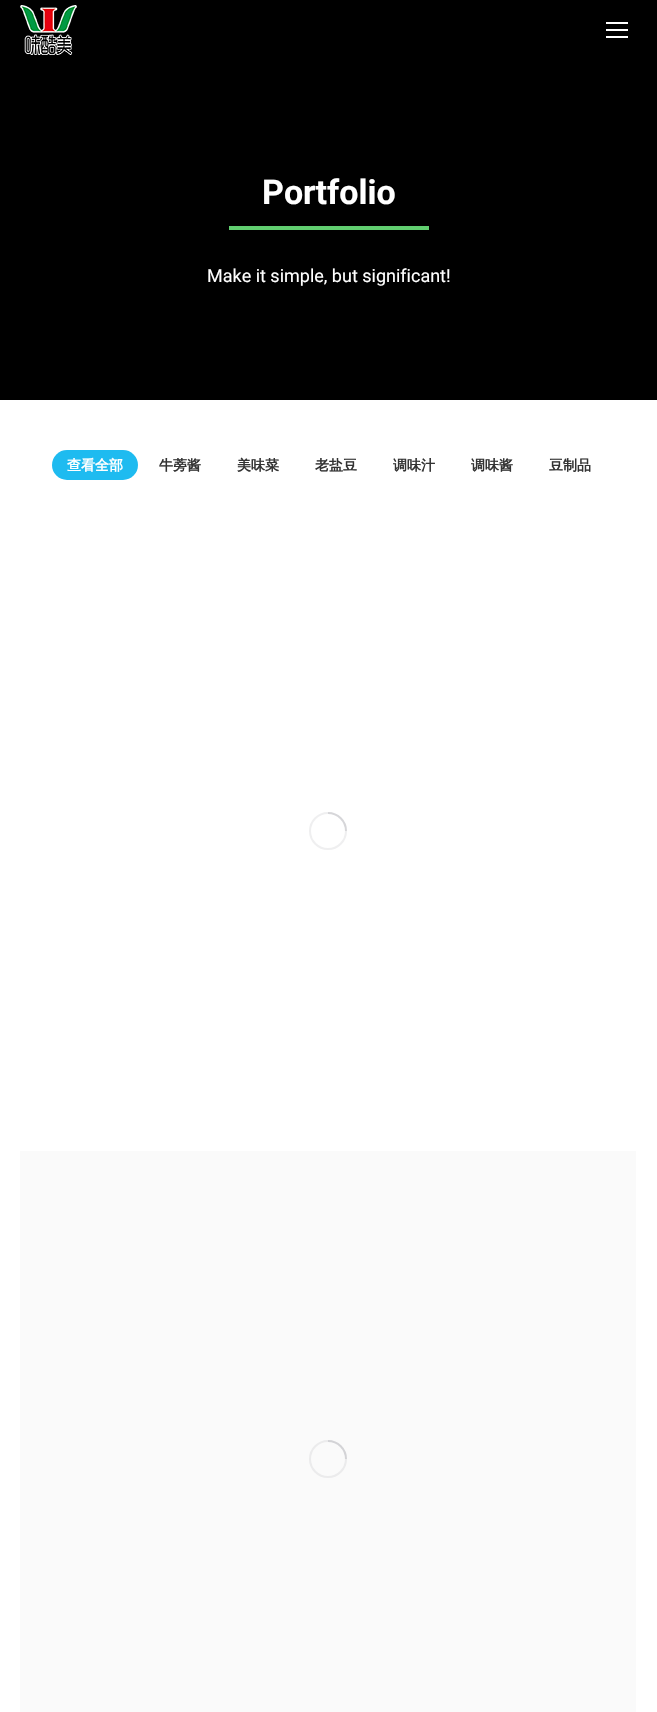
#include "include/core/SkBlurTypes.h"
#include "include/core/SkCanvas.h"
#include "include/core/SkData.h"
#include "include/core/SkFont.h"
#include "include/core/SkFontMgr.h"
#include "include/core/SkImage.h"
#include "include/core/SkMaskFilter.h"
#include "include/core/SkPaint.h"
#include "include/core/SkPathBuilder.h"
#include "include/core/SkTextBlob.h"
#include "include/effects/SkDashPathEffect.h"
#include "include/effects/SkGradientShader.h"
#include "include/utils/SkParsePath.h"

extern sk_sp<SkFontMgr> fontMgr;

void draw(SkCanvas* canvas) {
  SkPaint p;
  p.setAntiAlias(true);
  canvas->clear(SK_ColorWHITE);
  p.setColor(SK_ColorBLACK);
  canvas->drawRect(SkRect::MakeLTRB(0, 0, 657, 400), p);
  canvas->drawImageRect(SkImages::DeferredFromEncodedData(SkData::MakeFromFileName("images/1.png")), SkRect::MakeLTRB(20, 5, 77, 55), SkSamplingOptions());
  p.setColor(SK_ColorWHITE);
  canvas->drawRect(SkRect::MakeLTRB(606, 22, 628, 24), p);
  canvas->drawRect(SkRect::MakeLTRB(606, 29, 628, 31), p);
  canvas->drawRect(SkRect::MakeLTRB(606, 36, 628, 38), p);
  p.setColor(SkColorSetRGB(97, 206, 112));
  canvas->drawRect(SkRect::MakeLTRB(229, 226, 429, 230), p);
  p.setColor(SkColorSetRGB(30, 187, 240));
  canvas->drawRoundRect(SkRect::MakeLTRB(52, 450, 138, 480), 15, 15, p);
  p.setStyle(SkPaint::kStroke_Style);
  p.setStrokeWidth(2);
  p.setColor(SkColorSetRGB(239, 239, 240));
  canvas->drawCircle(328, 831, 18, p);
  p.setColor(SkColorSetARGB(64, 139, 141, 148));
  canvas->drawPath(SkPathBuilder().moveTo(346, 831).cubicTo(346, 821, 338, 813, 328, 813).detach(), p);
  p.setStyle(SkPaint::kFill_Style);
  p.setColor(SkColorSetRGB(250, 250, 250));
  canvas->drawRect(SkRect::MakeLTRB(20, 1151, 636, 1712), p);
  p.setStyle(SkPaint::kStroke_Style);
  p.setColor(SkColorSetRGB(235, 235, 236));
  canvas->drawCircle(328, 1459, 18, p);
  p.setColor(SkColorSetARGB(64, 139, 141, 148));
  canvas->drawPath(SkPathBuilder().moveTo(346, 1459).cubicTo(346, 1449, 338, 1441, 328, 1441).detach(), p);
  SkFont font1(fontMgr->matchFamilyStyle("Roboto", SkFontStyle::Bold()), 34);
  font1.setSubpixel(true);
  p.setStyle(SkPaint::kFill_Style);
  p.setColor(SK_ColorWHITE);
  canvas->drawString("Portfolio", 262, 204, font1, p);
  SkFont font2(fontMgr->matchFamilyStyle("Roboto", SkFontStyle::Normal()), 18);
  font2.setSubpixel(true);
  canvas->drawString("Make it simple, but significant!", 207, 282, font2, p);
  SkFont font3(fontMgr->matchFamilyStyle("WenQuanYi Zen Hei", SkFontStyle::Bold()), 14);
  font3.setSubpixel(true);
  canvas->drawString("查看全部", 67, 470, font3, p);
  p.setColor(SkColorSetRGB(51, 51, 51));
  canvas->drawString("牛蒡酱", 159, 470, font3, p);
  canvas->drawString("美味菜", 237, 470, font3, p);
  canvas->drawString("老盐豆", 315, 470, font3, p);
  canvas->drawString("调味汁", 393, 470, font3, p);
  canvas->drawString("调味酱", 471, 470, font3, p);
  canvas->drawString("豆制品", 549, 470, font3, p);
}
